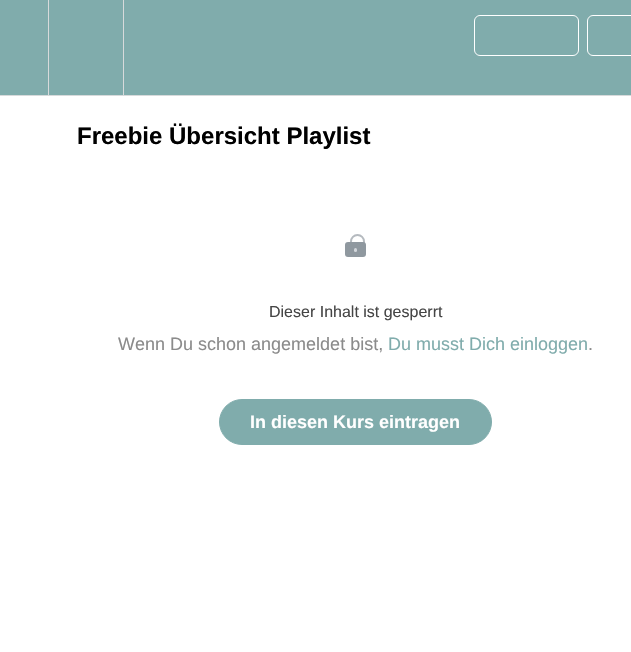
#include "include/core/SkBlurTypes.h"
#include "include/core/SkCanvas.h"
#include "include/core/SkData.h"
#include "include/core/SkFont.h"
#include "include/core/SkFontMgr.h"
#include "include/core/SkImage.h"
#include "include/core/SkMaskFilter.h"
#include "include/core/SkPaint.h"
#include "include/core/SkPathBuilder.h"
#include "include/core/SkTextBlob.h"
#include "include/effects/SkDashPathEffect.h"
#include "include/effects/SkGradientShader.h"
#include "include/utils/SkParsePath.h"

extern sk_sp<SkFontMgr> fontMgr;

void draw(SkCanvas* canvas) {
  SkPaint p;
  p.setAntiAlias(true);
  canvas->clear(SK_ColorWHITE);
  p.setColor(SkColorSetRGB(128, 172, 172));
  canvas->drawRect(SkRect::MakeLTRB(0, 0, 631, 95), p);
  p.setColor(SkColorSetRGB(215, 218, 219));
  canvas->drawRect(SkRect::MakeLTRB(0, 95, 631, 96), p);
  canvas->drawRect(SkRect::MakeLTRB(123, 0, 124, 95), p);
  canvas->drawRect(SkRect::MakeLTRB(48, 0, 49, 95), p);
  p.setStyle(SkPaint::kStroke_Style);
  p.setStrokeWidth(1);
  p.setColor(SK_ColorWHITE);
  canvas->drawRoundRect(SkRect::MakeLTRB(474.5f, 15.5f, 578.5f, 55.5f), 5.5f, 5.5f, p);
  canvas->drawRoundRect(SkRect::MakeLTRB(587.5f, 15.5f, 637.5f, 55.5f), 5.5f, 5.5f, p);
  p.setStrokeWidth(2);
  p.setColor(SkColorSetRGB(181, 186, 191));
  canvas->drawRoundRect(SkRect::MakeLTRB(351, 235, 364, 255), 6.5f, 6.5f, p);
  p.setStyle(SkPaint::kFill_Style);
  p.setColor(SkColorSetRGB(143, 152, 159));
  canvas->drawRoundRect(SkRect::MakeLTRB(345, 242, 366, 257), 3, 3, p);
  p.setColor(SkColorSetRGB(211, 215, 220));
  canvas->drawRoundRect(SkRect::MakeLTRB(354, 248, 357, 252), 1.5f, 1.5f, p);
  p.setColor(SkColorSetRGB(128, 172, 172));
  canvas->drawRoundRect(SkRect::MakeLTRB(219.5f, 399.5f, 491.5f, 444.5f), 22.5f, 22.5f, p);
  p.setStyle(SkPaint::kStroke_Style);
  p.setStrokeWidth(1);
  canvas->drawRoundRect(SkRect::MakeLTRB(219.5f, 399.5f, 491.5f, 444.5f), 22.5f, 22.5f, p);
  SkFont font1(fontMgr->matchFamilyStyle("Liberation Sans", SkFontStyle::Bold()), 24);
  font1.setSubpixel(true);
  p.setStyle(SkPaint::kFill_Style);
  p.setColor(SK_ColorBLACK);
  canvas->drawString("Freebie Übersicht Playlist", 77, 144, font1, p);
  SkFont font2(fontMgr->matchFamilyStyle("Liberation Sans", SkFontStyle::Normal()), 16);
  font2.setSubpixel(true);
  p.setColor(SkColorSetRGB(69, 69, 69));
  canvas->drawString("Dieser Inhalt ist gesperrt", 269, 317, font2, p);
  SkFont font3(fontMgr->matchFamilyStyle("Liberation Sans", SkFontStyle::Normal()), 18);
  font3.setSubpixel(true);
  p.setColor(SkColorSetRGB(139, 139, 139));
  canvas->drawString("Wenn Du schon angemeldet bist,", 118, 350, font3, p);
  p.setColor(SkColorSetRGB(128, 172, 172));
  canvas->drawString("Du musst Dich einloggen", 388, 350, font3, p);
  p.setColor(SkColorSetRGB(139, 139, 139));
  canvas->drawString(".", 588, 350, font3, p);
  SkFont font4(fontMgr->matchFamilyStyle("Liberation Sans", SkFontStyle::Bold()), 18);
  font4.setSubpixel(true);
  p.setColor(SK_ColorWHITE);
  canvas->drawString("In diesen Kurs eintragen", 250, 428, font4, p);
}
